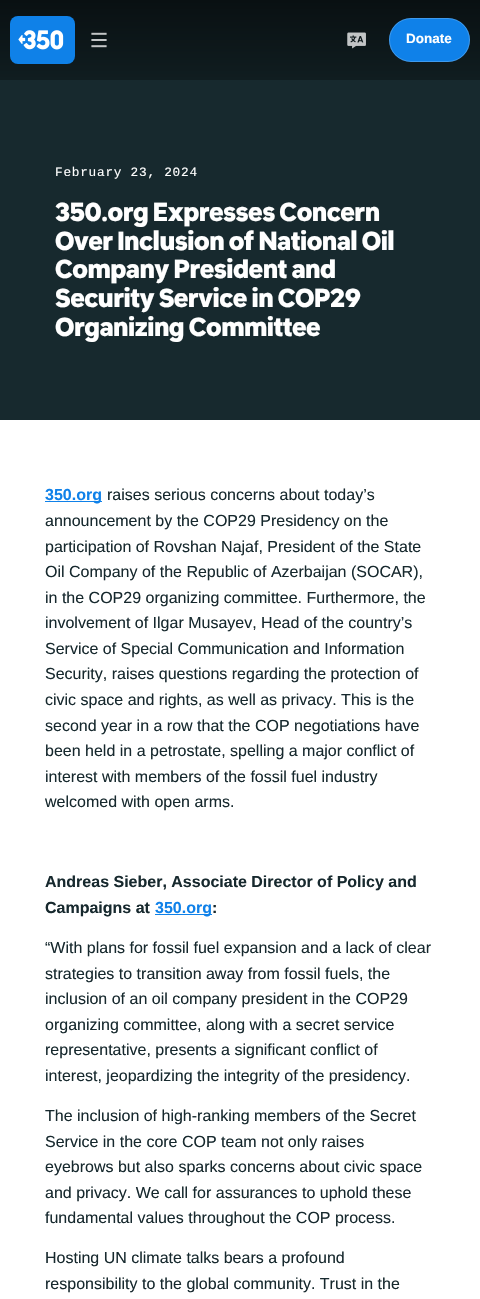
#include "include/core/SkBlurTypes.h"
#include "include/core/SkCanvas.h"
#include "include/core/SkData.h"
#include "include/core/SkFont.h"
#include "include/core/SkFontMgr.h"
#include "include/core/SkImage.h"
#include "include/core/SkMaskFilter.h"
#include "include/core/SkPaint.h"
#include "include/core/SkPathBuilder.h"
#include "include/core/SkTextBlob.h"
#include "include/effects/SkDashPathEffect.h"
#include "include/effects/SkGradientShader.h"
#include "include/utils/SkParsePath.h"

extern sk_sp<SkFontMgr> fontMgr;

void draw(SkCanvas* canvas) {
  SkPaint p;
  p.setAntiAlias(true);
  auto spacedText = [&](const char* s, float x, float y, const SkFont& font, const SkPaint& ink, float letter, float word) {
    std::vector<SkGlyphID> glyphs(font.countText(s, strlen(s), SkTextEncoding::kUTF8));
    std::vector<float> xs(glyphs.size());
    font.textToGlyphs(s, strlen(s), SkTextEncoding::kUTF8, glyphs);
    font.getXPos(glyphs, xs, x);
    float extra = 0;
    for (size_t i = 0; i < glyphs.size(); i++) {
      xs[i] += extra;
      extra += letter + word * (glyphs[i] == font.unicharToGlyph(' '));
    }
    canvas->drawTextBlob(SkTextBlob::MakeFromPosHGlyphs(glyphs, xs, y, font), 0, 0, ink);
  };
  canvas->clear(SkColorSetRGB(23, 41, 46));
  {
    const SkColor colors[] = {SkColorSetRGB(9, 16, 18), SkColorSetRGB(16, 29, 32)};
    const float stops[] = {0, 1};
    const SkPoint ends[] = {{240, 0}, {240, 80}};
    p.setShader(SkGradientShader::MakeLinear(ends, colors, stops, 2, SkTileMode::kClamp));
    p.setAlpha(255);
  }
  canvas->drawRect(SkRect::MakeLTRB(0, 0, 480, 80), p);
  p.setShader(nullptr);
  p.setColor(SkColorSetRGB(15, 129, 232));
  canvas->drawRoundRect(SkRect::MakeLTRB(10, 16, 75, 64), 8, 8, p);
  canvas->drawImageRect(SkImages::DeferredFromEncodedData(SkData::MakeFromFileName("images/1.png")), SkRect::MakeLTRB(18, 30, 64, 50), SkSamplingOptions());
  canvas->drawImageRect(SkImages::DeferredFromEncodedData(SkData::MakeFromFileName("images/2.png")), SkRect::MakeLTRB(91, 32, 107, 48), SkSamplingOptions());
  canvas->drawImageRect(SkImages::DeferredFromEncodedData(SkData::MakeFromFileName("images/3.png")), SkRect::MakeLTRB(347, 32, 366, 49), SkSamplingOptions());
  p.setColor(SkColorSetRGB(15, 129, 233));
  canvas->drawRoundRect(SkRect::MakeLTRB(389, 18, 470, 62), 22, 22, p);
  p.setStyle(SkPaint::kStroke_Style);
  p.setStrokeWidth(1);
  p.setColor(SkColorSetARGB(51, 255, 255, 255));
  canvas->drawRoundRect(SkRect::MakeLTRB(389.5f, 18.5f, 469.5f, 61.5f), 21.5f, 21.5f, p);
  p.setStyle(SkPaint::kFill_Style);
  p.setColor(SK_ColorWHITE);
  canvas->drawRect(SkRect::MakeLTRB(0, 420, 480, 1299), p);
  p.setColor(SkColorSetRGB(15, 129, 233));
  canvas->drawRect(SkRect::MakeLTRB(45, 501, 102, 502), p);
  canvas->drawRect(SkRect::MakeLTRB(155, 914, 212, 915), p);
  SkFont font1(fontMgr->matchFamilyStyle("Liberation Sans", SkFontStyle::Bold()), 13.5f);
  font1.setSubpixel(true);
  p.setColor(SK_ColorWHITE);
  canvas->drawString("Donate", 406, 43, font1, p);
  SkFont font2(fontMgr->matchFamilyStyle("Liberation Mono", SkFontStyle::Normal()), 12.75f);
  font2.setSubpixel(true);
  spacedText("February 23, 2024", 55, 176, font2, p, 0.75f, 0);
  SkFont font3(fontMgr->matchFamilyStyle("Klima", SkFontStyle(900, SkFontStyle::kNormal_Width, SkFontStyle::kUpright_Slant)), 25.7f);
  font3.setSubpixel(true);
  spacedText("350.org Expresses Concern", 55, 221, font3, p, -0.5f, 0);
  spacedText("Over Inclusion of National Oil", 55, 250, font3, p, -0.5f, 0);
  spacedText("Company President and", 55, 278, font3, p, -0.5f, 0);
  spacedText("Security Service in COP29", 55, 307, font3, p, -0.5f, 0);
  spacedText("Organizing Committee", 55, 336, font3, p, -0.5f, 0);
  SkFont font4(fontMgr->matchFamilyStyle("Liberation Sans", SkFontStyle::Bold()), 16);
  font4.setSubpixel(true);
  p.setColor(SkColorSetRGB(15, 129, 233));
  canvas->drawString("350.org", 45, 500, font4, p);
  SkFont font5(fontMgr->matchFamilyStyle("Liberation Sans", SkFontStyle::Normal()), 16);
  font5.setSubpixel(true);
  p.setColor(SkColorSetRGB(23, 41, 46));
  canvas->drawString("raises serious concerns about today’s", 107, 500, font5, p);
  canvas->drawString("announcement by the COP29 Presidency on the", 45, 526, font5, p);
  canvas->drawString("participation of Rovshan Najaf, President of the State", 45, 552, font5, p);
  canvas->drawString("Oil Company of the Republic of Azerbaijan (SOCAR),", 45, 577, font5, p);
  canvas->drawString("in the COP29 organizing committee. Furthermore, the", 45, 603, font5, p);
  canvas->drawString("involvement of Ilgar Musayev, Head of the country’s", 45, 628, font5, p);
  canvas->drawString("Service of Special Communication and Information", 45, 654, font5, p);
  canvas->drawString("Security, raises questions regarding the protection of", 45, 679, font5, p);
  canvas->drawString("civic space and rights, as well as privacy. This is the", 45, 705, font5, p);
  canvas->drawString("second year in a row that the COP negotiations have", 45, 731, font5, p);
  canvas->drawString("been held in a petrostate, spelling a major conflict of", 45, 756, font5, p);
  canvas->drawString("interest with members of the fossil fuel industry", 45, 782, font5, p);
  canvas->drawString("welcomed with open arms.", 45, 807, font5, p);
  canvas->drawString("Andreas Sieber, Associate Director of Policy and", 45, 887, font4, p);
  canvas->drawString("Campaigns at", 45, 913, font4, p);
  p.setColor(SkColorSetRGB(15, 129, 233));
  canvas->drawString("350.org", 155, 913, font4, p);
  p.setColor(SkColorSetRGB(23, 41, 46));
  canvas->drawString(":", 212, 913, font4, p);
  canvas->drawString("“With plans for fossil fuel expansion and a lack of clear", 45, 953, font5, p);
  canvas->drawString("strategies to transition away from fossil fuels, the", 45, 979, font5, p);
  canvas->drawString("inclusion of an oil company president in the COP29", 45, 1004, font5, p);
  canvas->drawString("organizing committee, along with a secret service", 45, 1030, font5, p);
  canvas->drawString("representative, presents a significant conflict of", 45, 1055, font5, p);
  canvas->drawString("interest, jeopardizing the integrity of the presidency.", 45, 1081, font5, p);
  canvas->drawString("The inclusion of high-ranking members of the Secret", 45, 1121, font5, p);
  canvas->drawString("Service in the core COP team not only raises", 45, 1147, font5, p);
  canvas->drawString("eyebrows but also sparks concerns about civic space", 45, 1172, font5, p);
  canvas->drawString("and privacy. We call for assurances to uphold these", 45, 1198, font5, p);
  canvas->drawString("fundamental values throughout the COP process.", 45, 1223, font5, p);
  canvas->drawString("Hosting UN climate talks bears a profound", 45, 1263, font5, p);
  canvas->drawString("responsibility to the global community. Trust in the", 45, 1289, font5, p);
}
